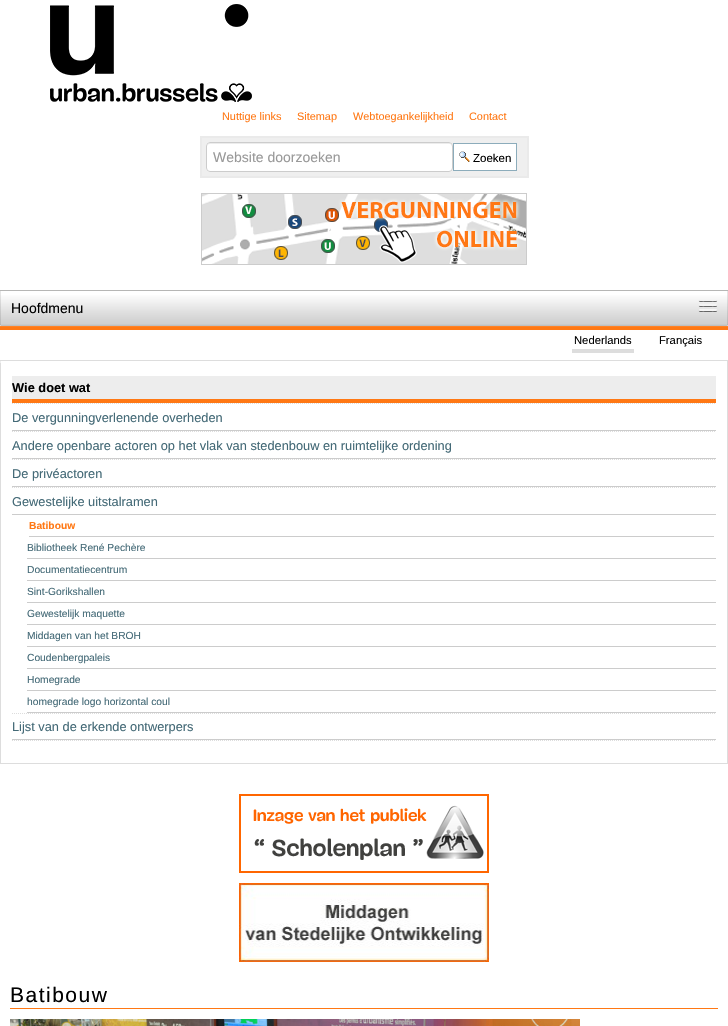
#include "include/core/SkBlurTypes.h"
#include "include/core/SkCanvas.h"
#include "include/core/SkData.h"
#include "include/core/SkFont.h"
#include "include/core/SkFontMgr.h"
#include "include/core/SkImage.h"
#include "include/core/SkMaskFilter.h"
#include "include/core/SkPaint.h"
#include "include/core/SkPathBuilder.h"
#include "include/core/SkTextBlob.h"
#include "include/effects/SkDashPathEffect.h"
#include "include/effects/SkGradientShader.h"
#include "include/utils/SkParsePath.h"

extern sk_sp<SkFontMgr> fontMgr;

void draw(SkCanvas* canvas) {
  SkPaint p;
  p.setAntiAlias(true);
  auto spacedText = [&](const char* s, float x, float y, const SkFont& font, const SkPaint& ink, float letter, float word) {
    std::vector<SkGlyphID> glyphs(font.countText(s, strlen(s), SkTextEncoding::kUTF8));
    std::vector<float> xs(glyphs.size());
    font.textToGlyphs(s, strlen(s), SkTextEncoding::kUTF8, glyphs);
    font.getXPos(glyphs, xs, x);
    float extra = 0;
    for (size_t i = 0; i < glyphs.size(); i++) {
      xs[i] += extra;
      extra += letter + word * (glyphs[i] == font.unicharToGlyph(' '));
    }
    canvas->drawTextBlob(SkTextBlob::MakeFromPosHGlyphs(glyphs, xs, y, font), 0, 0, ink);
  };
  canvas->clear(SK_ColorWHITE);
  canvas->drawImageRect(SkImages::DeferredFromEncodedData(SkData::MakeFromFileName("images/1.png")), SkRect::MakeLTRB(50, 4, 252, 102), SkSamplingOptions());
  p.setColor(SkColorSetRGB(239, 239, 239));
  canvas->drawRect(SkRect::MakeLTRB(201, 137, 528, 177), p);
  p.setStyle(SkPaint::kStroke_Style);
  p.setStrokeWidth(2);
  p.setColor(SkColorSetRGB(234, 234, 234));
  canvas->drawRect(SkRect::MakeLTRB(201, 137, 528, 177), p);
  p.setStyle(SkPaint::kFill_Style);
  p.setColor(SK_ColorWHITE);
  canvas->drawRoundRect(SkRect::MakeLTRB(206, 142, 453, 172), 4, 4, p);
  p.setColor(SkColorSetRGB(236, 236, 236));
  canvas->drawPath(SkPathBuilder().moveTo(210, 144).lineTo(450, 144).lineTo(452, 145).lineTo(452, 147).cubicTo(452, 145, 451, 143, 449, 143).lineTo(210, 143).cubicTo(208, 143, 207, 145, 207, 147).cubicTo(207, 145, 208, 144, 210, 144).close().detach(), p);
  p.setStyle(SkPaint::kStroke_Style);
  p.setStrokeWidth(1);
  p.setColor(SkColorSetRGB(204, 204, 204));
  canvas->drawRoundRect(SkRect::MakeLTRB(206.5f, 142.5f, 452.5f, 171.5f), 3.5f, 3.5f, p);
  p.setStyle(SkPaint::kFill_Style);
  p.setColor(SK_ColorWHITE);
  canvas->drawRect(SkRect::MakeLTRB(454, 144, 516, 170), p);
  canvas->drawImageRect(SkImages::DeferredFromEncodedData(SkData::MakeFromFileName("images/2.png")), SkRect::MakeLTRB(459, 151, 470, 162), SkSamplingOptions());
  p.setStyle(SkPaint::kStroke_Style);
  p.setColor(SkColorSetRGB(140, 172, 187));
  canvas->drawRect(SkRect::MakeLTRB(453.5f, 143.5f, 516.5f, 170.5f), p);
  p.setColor(SkColorSetRGB(204, 204, 204));
  canvas->drawRect(SkRect::MakeLTRB(201.5f, 193.5f, 526.5f, 264.5f), p);
  canvas->drawImageRect(SkImages::DeferredFromEncodedData(SkData::MakeFromFileName("images/3.png")), SkRect::MakeLTRB(202, 194, 526, 264), SkSamplingOptions());
  p.setStyle(SkPaint::kFill_Style);
  p.setColor(SkColorSetRGB(255, 120, 20));
  canvas->drawRect(SkRect::MakeLTRB(0, 327, 728, 330), p);
  p.setColor(SkColorSetRGB(255, 130, 38));
  canvas->drawRect(SkRect::MakeLTRB(0, 326, 728, 327), p);
  {
    const SkColor colors[] = {SK_ColorWHITE, SK_ColorWHITE, SkColorSetRGB(221, 221, 221), SkColorSetRGB(210, 210, 210), SkColorSetRGB(208, 208, 208), SkColorSetRGB(213, 213, 211), SkColorSetRGB(173, 173, 173)};
    const float stops[] = {0, 0.08f, 0.66f, 0.89f, 0.97f, 0.98f, 1};
    const SkPoint ends[] = {{364, 257}, {364, 291}};
    p.setShader(SkGradientShader::MakeLinear(ends, colors, stops, 7, SkTileMode::kClamp));
    p.setAlpha(255);
  }
  canvas->drawRect(SkRect::MakeLTRB(0, 290, 728, 291), p);
  {
    const SkColor colors[] = {SK_ColorWHITE, SK_ColorWHITE, SkColorSetRGB(221, 221, 221), SkColorSetRGB(210, 210, 210), SkColorSetRGB(208, 208, 208), SkColorSetRGB(213, 213, 211), SkColorSetRGB(173, 173, 173)};
    const float stops[] = {0, 0.08f, 0.66f, 0.89f, 0.97f, 0.98f, 1};
    const SkPoint ends[] = {{364, 291}, {364, 325}};
    p.setShader(SkGradientShader::MakeLinear(ends, colors, stops, 7, SkTileMode::kClamp));
    p.setAlpha(255);
  }
  canvas->drawRect(SkRect::MakeLTRB(0, 295, 728, 325), p);
  p.setShader(nullptr);
  p.setColor(SkColorSetRGB(182, 182, 181));
  canvas->drawPath(SkPathBuilder().moveTo(0, 290).lineTo(728, 290).lineTo(727, 291).lineTo(1, 291).close().detach(), p);
  p.setColor(SkColorSetARGB(26, 0, 0, 0));
  canvas->drawPath(SkPathBuilder().moveTo(728, 290).lineTo(728, 326).lineTo(727, 325).lineTo(727, 291).close().detach(), p);
  p.setColor(SkColorSetARGB(64, 0, 0, 0));
  canvas->drawPath(SkPathBuilder().moveTo(728, 326).lineTo(0, 326).lineTo(1, 325).lineTo(727, 325).close().detach(), p);
  p.setColor(SkColorSetARGB(26, 0, 0, 0));
  canvas->drawPath(SkPathBuilder().moveTo(0, 326).lineTo(0, 290).lineTo(1, 291).lineTo(1, 325).close().detach(), p);
  p.setColor(SkColorSetRGB(109, 109, 109));
  canvas->drawPath(SkPathBuilder().moveTo(699, 300.5f).cubicTo(698, 302.5f, 702.5f, 302, 702.5f, 302).lineTo(713.5f, 302).cubicTo(713.5f, 302, 718, 302.5f, 717, 300.5f).cubicTo(716, 301.5f, 709.5f, 301, 708, 301).cubicTo(706.5f, 301, 700, 301.5f, 699, 300.5f).close().detach(), p);
  p.setColor(SkColorSetRGB(245, 245, 245));
  canvas->drawRoundRect(SkRect::MakeLTRB(699, 299, 717, 301), 1, 1, p);
  p.setColor(SkColorSetRGB(105, 105, 105));
  canvas->drawPath(SkPathBuilder().moveTo(699, 305.5f).cubicTo(698, 307.5f, 702.5f, 307, 702.5f, 307).lineTo(713.5f, 307).cubicTo(713.5f, 307, 718, 307.5f, 717, 305.5f).cubicTo(716, 306.5f, 709.5f, 306, 708, 306).cubicTo(706.5f, 306, 700, 306.5f, 699, 305.5f).close().detach(), p);
  p.setColor(SkColorSetRGB(245, 245, 245));
  canvas->drawRoundRect(SkRect::MakeLTRB(699, 304, 717, 306), 1, 1, p);
  p.setColor(SkColorSetRGB(101, 101, 101));
  canvas->drawPath(SkPathBuilder().moveTo(699, 310.5f).cubicTo(698, 312.5f, 702.5f, 312, 702.5f, 312).lineTo(713.5f, 312).cubicTo(713.5f, 312, 718, 312.5f, 717, 310.5f).cubicTo(716, 311.5f, 709.5f, 311, 708, 311).cubicTo(706.5f, 311, 700, 311.5f, 699, 310.5f).close().detach(), p);
  p.setColor(SkColorSetRGB(245, 245, 245));
  canvas->drawRoundRect(SkRect::MakeLTRB(699, 309, 717, 311), 1, 1, p);
  p.setColor(SkColorSetRGB(221, 221, 221));
  canvas->drawRect(SkRect::MakeLTRB(572, 349, 634, 353), p);
  p.setStyle(SkPaint::kStroke_Style);
  canvas->drawRect(SkRect::MakeLTRB(0.5f, 360.5f, 727.5f, 763.5f), p);
  p.setStyle(SkPaint::kFill_Style);
  p.setColor(SkColorSetRGB(238, 238, 238));
  canvas->drawRect(SkRect::MakeLTRB(0, 361, 1, 364), p);
  p.setColor(SkColorSetRGB(221, 221, 221));
  canvas->drawRect(SkRect::MakeLTRB(0, 363, 1, 364), p);
  p.setStyle(SkPaint::kStroke_Style);
  p.setPathEffect(SkDashPathEffect::Make({{1, 1}}, 0));
  canvas->drawPath(SkPathBuilder().moveTo(12, 403.5f).lineTo(716, 403.5f).detach(), p);
  p.setPathEffect(nullptr);
  p.setStyle(SkPaint::kFill_Style);
  p.setColor(SkColorSetRGB(237, 237, 237));
  canvas->drawRect(SkRect::MakeLTRB(12, 376, 716, 399), p);
  p.setColor(SkColorSetRGB(255, 120, 20));
  canvas->drawRect(SkRect::MakeLTRB(12, 399, 716, 403), p);
  p.setStyle(SkPaint::kStroke_Style);
  p.setColor(SkColorSetRGB(221, 221, 221));
  p.setPathEffect(SkDashPathEffect::Make({{1, 1}}, 0));
  canvas->drawPath(SkPathBuilder().moveTo(12, 431.5f).lineTo(716, 431.5f).detach(), p);
  p.setPathEffect(nullptr);
  p.setStyle(SkPaint::kFill_Style);
  p.setColor(SkColorSetRGB(204, 204, 204));
  canvas->drawRect(SkRect::MakeLTRB(12, 430, 716, 431), p);
  p.setStyle(SkPaint::kStroke_Style);
  p.setColor(SkColorSetRGB(221, 221, 221));
  p.setPathEffect(SkDashPathEffect::Make({{1, 1}}, 0));
  canvas->drawPath(SkPathBuilder().moveTo(12, 459.5f).lineTo(716, 459.5f).detach(), p);
  p.setPathEffect(nullptr);
  p.setStyle(SkPaint::kFill_Style);
  p.setColor(SkColorSetRGB(204, 204, 204));
  canvas->drawRect(SkRect::MakeLTRB(12, 458, 716, 459), p);
  p.setStyle(SkPaint::kStroke_Style);
  p.setColor(SkColorSetRGB(221, 221, 221));
  p.setPathEffect(SkDashPathEffect::Make({{1, 1}}, 0));
  canvas->drawPath(SkPathBuilder().moveTo(12, 487.5f).lineTo(716, 487.5f).detach(), p);
  p.setPathEffect(nullptr);
  p.setStyle(SkPaint::kFill_Style);
  p.setColor(SkColorSetRGB(204, 204, 204));
  canvas->drawRect(SkRect::MakeLTRB(12, 486, 716, 487), p);
  p.setStyle(SkPaint::kStroke_Style);
  p.setColor(SkColorSetRGB(221, 221, 221));
  p.setPathEffect(SkDashPathEffect::Make({{1, 1}}, 0));
  canvas->drawPath(SkPathBuilder().moveTo(12, 713.5f).lineTo(716, 713.5f).detach(), p);
  p.setPathEffect(nullptr);
  p.setStyle(SkPaint::kFill_Style);
  p.setColor(SkColorSetRGB(204, 204, 204));
  canvas->drawRect(SkRect::MakeLTRB(12, 514, 716, 515), p);
  canvas->drawRect(SkRect::MakeLTRB(29, 536, 714, 537), p);
  canvas->drawRect(SkRect::MakeLTRB(27, 558, 716, 559), p);
  canvas->drawRect(SkRect::MakeLTRB(27, 580, 716, 581), p);
  canvas->drawRect(SkRect::MakeLTRB(27, 602, 716, 603), p);
  canvas->drawRect(SkRect::MakeLTRB(27, 624, 716, 625), p);
  canvas->drawRect(SkRect::MakeLTRB(27, 646, 716, 647), p);
  canvas->drawRect(SkRect::MakeLTRB(27, 668, 716, 669), p);
  canvas->drawRect(SkRect::MakeLTRB(27, 690, 716, 691), p);
  canvas->drawRect(SkRect::MakeLTRB(27, 712, 716, 713), p);
  p.setStyle(SkPaint::kStroke_Style);
  p.setColor(SkColorSetRGB(221, 221, 221));
  p.setPathEffect(SkDashPathEffect::Make({{1, 1}}, 0));
  canvas->drawPath(SkPathBuilder().moveTo(12, 740.5f).lineTo(716, 740.5f).detach(), p);
  p.setPathEffect(nullptr);
  p.setStyle(SkPaint::kFill_Style);
  p.setColor(SkColorSetRGB(204, 204, 204));
  canvas->drawRect(SkRect::MakeLTRB(12, 739, 716, 740), p);
  canvas->drawImageRect(SkImages::DeferredFromEncodedData(SkData::MakeFromFileName("images/4.png")), SkRect::MakeLTRB(239, 794, 489, 873), SkSamplingOptions());
  canvas->drawImageRect(SkImages::DeferredFromEncodedData(SkData::MakeFromFileName("images/5.png")), SkRect::MakeLTRB(239, 883, 489, 962), SkSamplingOptions());
  p.setColor(SkColorSetRGB(255, 120, 20));
  canvas->drawRect(SkRect::MakeLTRB(10, 1008, 718, 1009), p);
  canvas->drawImageRect(SkImages::DeferredFromEncodedData(SkData::MakeFromFileName("images/6.png")), SkRect::MakeLTRB(10, 1019, 580, 1026), SkSamplingOptions());
  SkFont font1(fontMgr->matchFamilyStyle("Liberation Sans", SkFontStyle::Normal()), 10.9f);
  font1.setSubpixel(true);
  canvas->drawString("Nuttige links", 222, 120, font1, p);
  canvas->drawString("Sitemap", 297, 120, font1, p);
  canvas->drawString("Webtoegankelijkheid", 353, 120, font1, p);
  canvas->drawString("Contact", 469, 120, font1, p);
  SkFont font2(fontMgr->matchFamilyStyle("Liberation Sans", SkFontStyle::Normal()), 14);
  font2.setSubpixel(true);
  p.setColor(SkColorSetRGB(153, 153, 153));
  canvas->drawString("Website doorzoeken", 213, 162, font2, p);
  SkFont font3(fontMgr->matchFamilyStyle("Liberation Sans", SkFontStyle::Normal()), 11.5f);
  font3.setSubpixel(true);
  p.setColor(SK_ColorBLACK);
  canvas->drawString("Zoeken", 473, 162, font3, p);
  canvas->drawString("Hoofdmenu", 11, 313, font2, p);
  SkFont font4(fontMgr->matchFamilyStyle("Liberation Sans", SkFontStyle::Normal()), 11.25f);
  font4.setSubpixel(true);
  canvas->drawString("Nederlands", 574, 344, font4, p);
  canvas->drawString("Français", 659, 344, font4, p);
  SkFont font5(fontMgr->matchFamilyStyle("Liberation Sans", SkFontStyle::Bold()), 12.8f);
  font5.setSubpixel(true);
  canvas->drawString("Wie doet wat", 12, 392, font5, p);
  SkFont font6(fontMgr->matchFamilyStyle("Liberation Sans", SkFontStyle::Normal()), 12.8f);
  font6.setSubpixel(true);
  p.setColor(SkColorSetRGB(67, 105, 118));
  canvas->drawString("De vergunningverlenende overheden", 12, 422, font6, p);
  canvas->drawString("Andere openbare actoren op het vlak van stedenbouw en ruimtelijke ordening", 12, 450, font6, p);
  canvas->drawString("De privéactoren", 12, 478, font6, p);
  canvas->drawString("Gewestelijke uitstalramen", 12, 506, font6, p);
  SkFont font7(fontMgr->matchFamilyStyle("Liberation Sans", SkFontStyle::Bold()), 10.25f);
  font7.setSubpixel(true);
  p.setColor(SkColorSetRGB(255, 120, 20));
  canvas->drawString("Batibouw", 29, 529, font7, p);
  SkFont font8(fontMgr->matchFamilyStyle("Liberation Sans", SkFontStyle::Normal()), 10.25f);
  font8.setSubpixel(true);
  p.setColor(SkColorSetRGB(67, 105, 118));
  canvas->drawString("Bibliotheek René Pechère", 27, 551, font8, p);
  canvas->drawString("Documentatiecentrum", 27, 573, font8, p);
  canvas->drawString("Sint-Gorikshallen", 27, 595, font8, p);
  canvas->drawString("Gewestelijk maquette", 27, 617, font8, p);
  canvas->drawString("Middagen van het BROH", 27, 639, font8, p);
  canvas->drawString("Coudenbergpaleis", 27, 661, font8, p);
  canvas->drawString("Homegrade", 27, 683, font8, p);
  canvas->drawString("homegrade logo horizontal coul", 27, 705, font8, p);
  canvas->drawString("Lijst van de erkende ontwerpers", 12, 731, font6, p);
  SkFont font9(fontMgr->matchFamilyStyle("Liberation Sans", SkFontStyle::Normal()), 21);
  font9.setSubpixel(true);
  p.setColor(SK_ColorBLACK);
  spacedText("Batibouw", 10, 1002, font9, p, 1.5f, 0);
}
